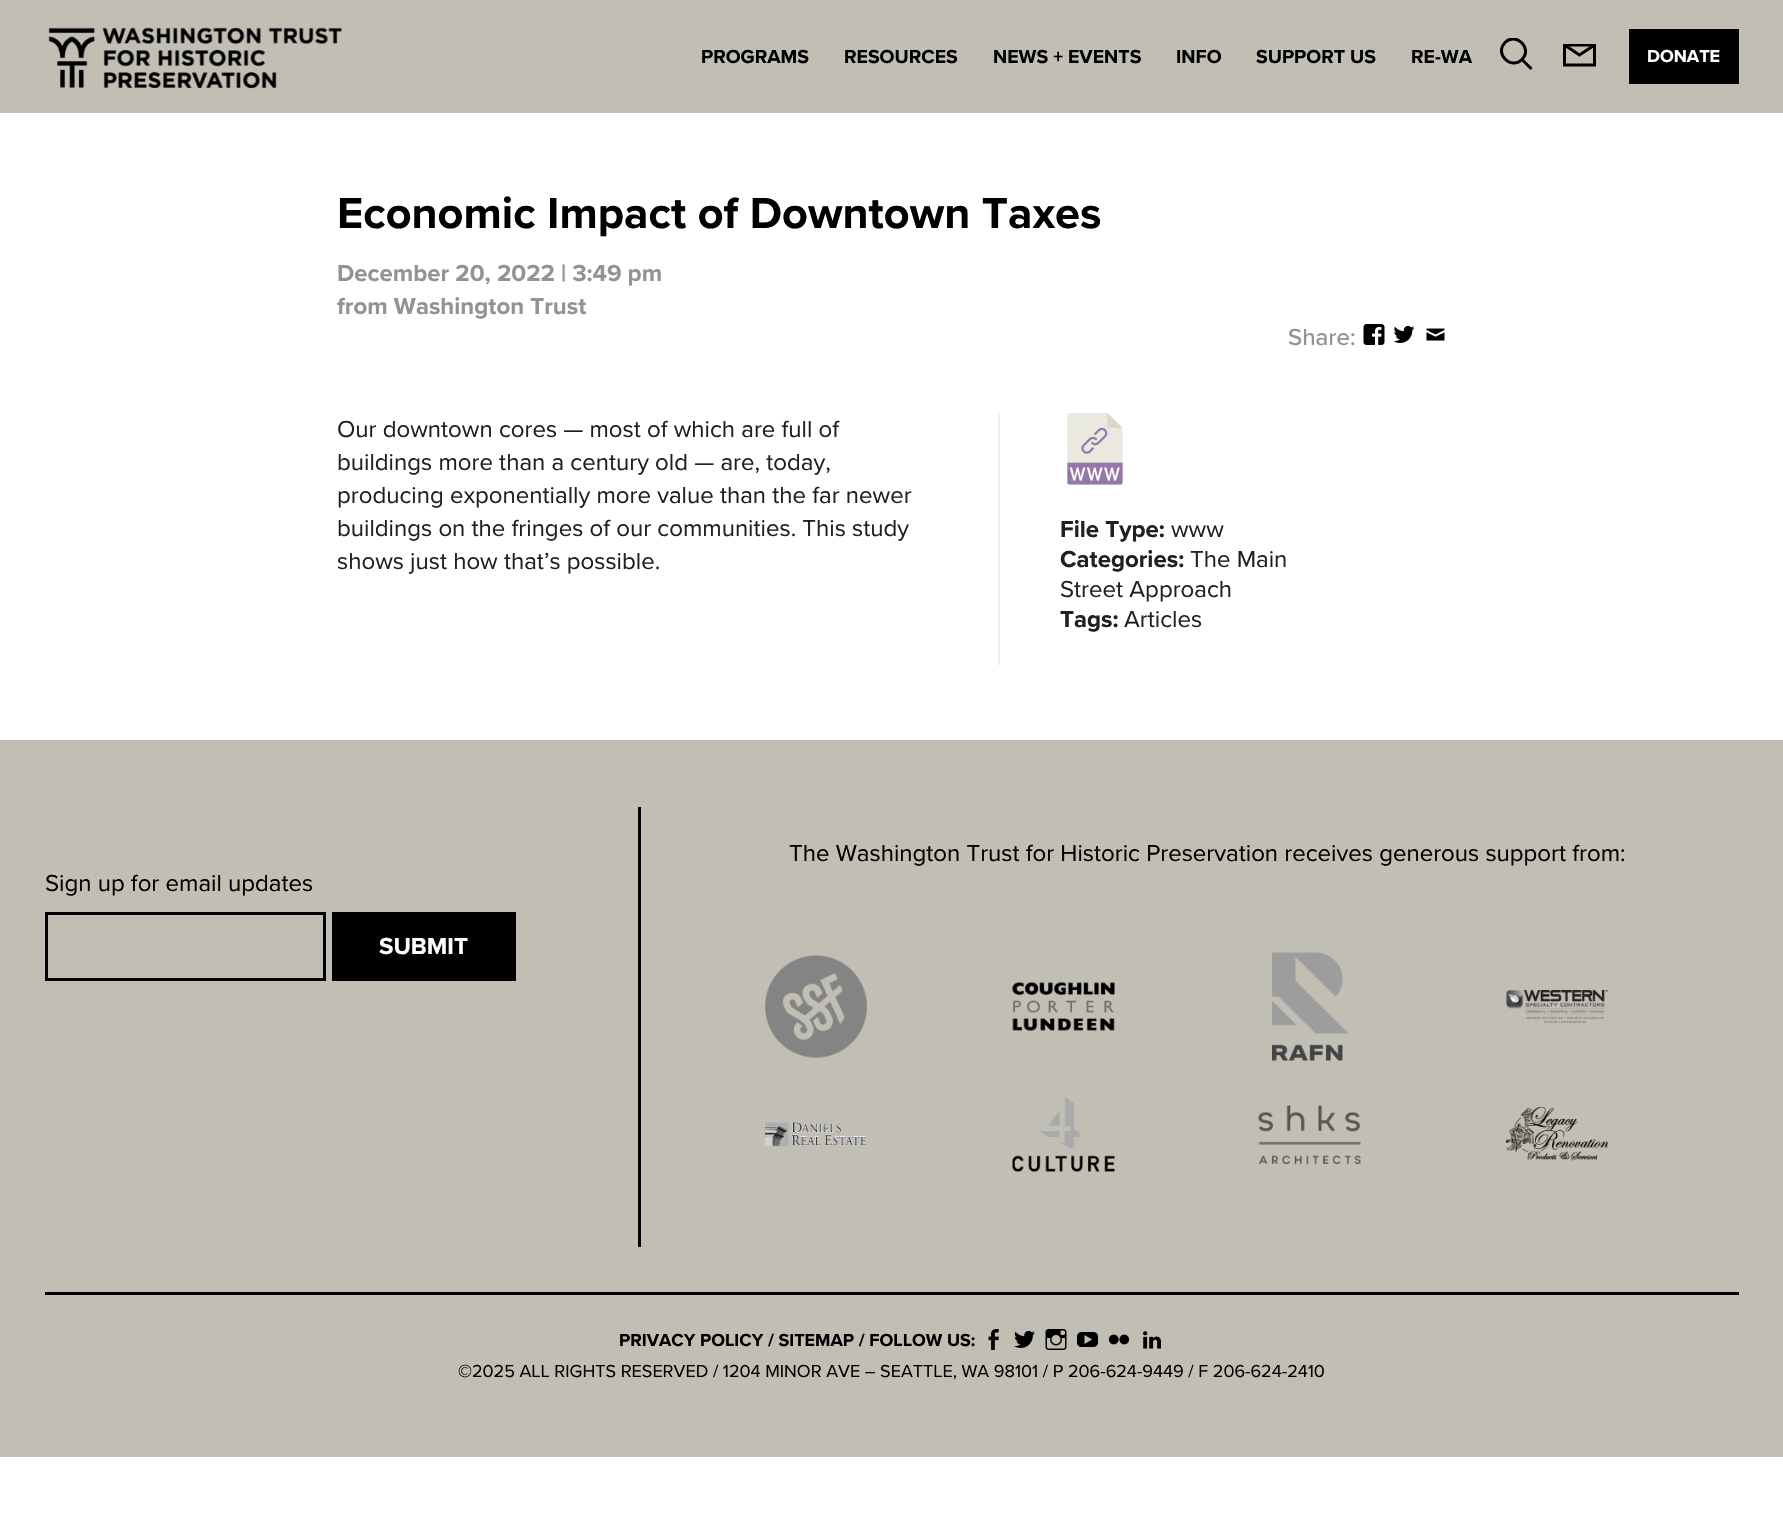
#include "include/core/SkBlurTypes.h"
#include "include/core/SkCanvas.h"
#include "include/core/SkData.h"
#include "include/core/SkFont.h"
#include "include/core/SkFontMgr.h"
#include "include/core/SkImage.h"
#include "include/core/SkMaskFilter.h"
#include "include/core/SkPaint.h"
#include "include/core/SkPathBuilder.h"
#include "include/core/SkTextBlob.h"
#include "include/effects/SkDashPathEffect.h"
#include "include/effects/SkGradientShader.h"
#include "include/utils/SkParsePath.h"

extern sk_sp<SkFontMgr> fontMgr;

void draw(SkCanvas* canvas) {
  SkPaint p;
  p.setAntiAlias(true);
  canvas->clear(SkColorSetRGB(193, 190, 180));
  p.setColor(SK_ColorWHITE);
  canvas->drawRect(SkRect::MakeLTRB(0, 113, 1783, 1517), p);
  canvas->drawImageRect(SkImages::DeferredFromEncodedData(SkData::MakeFromFileName("images/1.png")), SkRect::MakeLTRB(48, 27, 342, 89), SkSamplingOptions());
  canvas->save();
  canvas->clipRect(SkRect::MakeLTRB(1500, 38, 1535, 72));
  p.setStyle(SkPaint::kStroke_Style);
  p.setStrokeWidth(3);
  p.setColor(SK_ColorBLACK);
  canvas->drawPath(SkPathBuilder().moveTo(1505, 42.5f).cubicTo(1516, 31.5f, 1533, 48.5f, 1522, 59.5f).cubicTo(1511, 70.5f, 1494, 53.5f, 1505, 42.5f).close().detach(), p);
  canvas->restore();
  canvas->drawPath(SkPathBuilder().moveTo(1522, 59.5f).lineTo(1531.5f, 69).detach(), p);
  canvas->save();
  canvas->clipRect(SkRect::MakeLTRB(1563, 44, 1598, 78));
  canvas->drawPath(SkPathBuilder().moveTo(1564.5f, 45).lineTo(1594.5f, 45).lineTo(1594.5f, 65).lineTo(1564.5f, 65).close().detach(), p);
  canvas->restore();
  canvas->drawPath(SkPathBuilder().moveTo(1564.5f, 45).lineTo(1579.5f, 55).lineTo(1594.5f, 45).detach(), p);
  p.setStyle(SkPaint::kFill_Style);
  canvas->drawRect(SkRect::MakeLTRB(1629, 29, 1739, 84), p);
  canvas->drawImageRect(SkImages::DeferredFromEncodedData(SkData::MakeFromFileName("images/2.png")), SkRect::MakeLTRB(1363, 324, 1385, 345), SkSamplingOptions());
  canvas->drawImageRect(SkImages::DeferredFromEncodedData(SkData::MakeFromFileName("images/3.png")), SkRect::MakeLTRB(1393, 325, 1415, 343), SkSamplingOptions());
  canvas->drawImageRect(SkImages::DeferredFromEncodedData(SkData::MakeFromFileName("images/4.png")), SkRect::MakeLTRB(1426, 328, 1445, 341), SkSamplingOptions());
  p.setColor(SkColorSetRGB(238, 238, 238));
  canvas->drawRect(SkRect::MakeLTRB(998, 413, 1000, 665), p);
  canvas->drawImageRect(SkImages::DeferredFromEncodedData(SkData::MakeFromFileName("images/5.png")), SkRect::MakeLTRB(1067, 413, 1123, 485), SkSamplingOptions());
  p.setColor(SkColorSetRGB(193, 190, 180));
  canvas->drawRect(SkRect::MakeLTRB(0, 740, 1783, 1457), p);
  p.setColor(SK_ColorBLACK);
  canvas->drawRect(SkRect::MakeLTRB(638, 807, 641, 1247), p);
  canvas->drawImageRect(SkImages::DeferredFromEncodedData(SkData::MakeFromFileName("images/6.png")), SkRect::MakeLTRB(765, 955, 867, 1058), SkSamplingOptions());
  canvas->drawImageRect(SkImages::DeferredFromEncodedData(SkData::MakeFromFileName("images/7.png")), SkRect::MakeLTRB(1012, 982, 1115, 1031), SkSamplingOptions());
  canvas->drawImageRect(SkImages::DeferredFromEncodedData(SkData::MakeFromFileName("images/8.png")), SkRect::MakeLTRB(1272, 952, 1349, 1061), SkSamplingOptions());
  canvas->drawImageRect(SkImages::DeferredFromEncodedData(SkData::MakeFromFileName("images/9.png")), SkRect::MakeLTRB(1506, 990, 1608, 1023), SkSamplingOptions());
  canvas->drawImageRect(SkImages::DeferredFromEncodedData(SkData::MakeFromFileName("images/10.png")), SkRect::MakeLTRB(765, 1122, 867, 1146), SkSamplingOptions());
  canvas->drawImageRect(SkImages::DeferredFromEncodedData(SkData::MakeFromFileName("images/11.png")), SkRect::MakeLTRB(1012, 1096, 1115, 1172), SkSamplingOptions());
  canvas->drawImageRect(SkImages::DeferredFromEncodedData(SkData::MakeFromFileName("images/12.png")), SkRect::MakeLTRB(1258, 1105, 1361, 1164), SkSamplingOptions());
  canvas->drawImageRect(SkImages::DeferredFromEncodedData(SkData::MakeFromFileName("images/13.png")), SkRect::MakeLTRB(1506, 1107, 1608, 1161), SkSamplingOptions());
  p.setStyle(SkPaint::kStroke_Style);
  canvas->drawRect(SkRect::MakeLTRB(46.5f, 913.5f, 324.5f, 979.5f), p);
  p.setStyle(SkPaint::kFill_Style);
  canvas->drawRect(SkRect::MakeLTRB(332, 912, 516, 981), p);
  canvas->drawRect(SkRect::MakeLTRB(45, 1292, 1739, 1295), p);
  canvas->drawImageRect(SkImages::DeferredFromEncodedData(SkData::MakeFromFileName("images/14.png")), SkRect::MakeLTRB(988, 1329, 999, 1350), SkSamplingOptions());
  canvas->drawImageRect(SkImages::DeferredFromEncodedData(SkData::MakeFromFileName("images/15.png")), SkRect::MakeLTRB(1014, 1330, 1035, 1348), SkSamplingOptions());
  canvas->drawImageRect(SkImages::DeferredFromEncodedData(SkData::MakeFromFileName("images/16.png")), SkRect::MakeLTRB(1045, 1329, 1067, 1350), SkSamplingOptions());
  canvas->drawImageRect(SkImages::DeferredFromEncodedData(SkData::MakeFromFileName("images/17.png")), SkRect::MakeLTRB(1077, 1332, 1098, 1347), SkSamplingOptions());
  canvas->drawImageRect(SkImages::DeferredFromEncodedData(SkData::MakeFromFileName("images/18.png")), SkRect::MakeLTRB(1108, 1334, 1130, 1345), SkSamplingOptions());
  canvas->drawImageRect(SkImages::DeferredFromEncodedData(SkData::MakeFromFileName("images/19.png")), SkRect::MakeLTRB(1143, 1331, 1161, 1349), SkSamplingOptions());
  SkFont font1(fontMgr->matchFamilyStyle("Proxima Nova", SkFontStyle::Bold()), 19.5f);
  font1.setSubpixel(true);
  canvas->drawString("PROGRAMS", 701, 63, font1, p);
  canvas->drawString("RESOURCES", 844, 63, font1, p);
  canvas->drawString("NEWS + EVENTS", 993, 63, font1, p);
  canvas->drawString("INFO", 1176, 63, font1, p);
  canvas->drawString("SUPPORT US", 1256, 63, font1, p);
  canvas->drawString("RE-WA", 1411, 63, font1, p);
  SkFont font2(fontMgr->matchFamilyStyle("Proxima Nova", SkFontStyle::Bold()), 18);
  font2.setSubpixel(true);
  p.setColor(SK_ColorWHITE);
  canvas->drawString("DONATE", 1647, 62, font2, p);
  SkFont font3(fontMgr->matchFamilyStyle("Proxima Nova", SkFontStyle::Bold()), 45);
  font3.setSubpixel(true);
  p.setColor(SK_ColorBLACK);
  canvas->drawString("Economic Impact of Downtown Taxes", 337, 228, font3, p);
  SkFont font4(fontMgr->matchFamilyStyle("Proxima Nova", SkFontStyle::Bold()), 24);
  font4.setSubpixel(true);
  p.setColor(SkColorSetRGB(145, 147, 150));
  canvas->drawString("December 20, 2022 | 3:49 pm", 337, 281, font4, p);
  canvas->drawString("from Washington Trust", 337, 314, font4, p);
  SkFont font5(fontMgr->matchFamilyStyle("Proxima Nova", SkFontStyle(500, SkFontStyle::kNormal_Width, SkFontStyle::kUpright_Slant)), 24);
  font5.setSubpixel(true);
  canvas->drawString("Share:", 1288, 345, font5, p);
  SkFont font6(fontMgr->matchFamilyStyle("Proxima Nova", SkFontStyle::Normal()), 24);
  font6.setSubpixel(true);
  p.setColor(SkColorSetRGB(35, 31, 32));
  canvas->drawString("Our downtown cores — most of which are full of", 337, 437, font6, p);
  canvas->drawString("buildings more than a century old — are, today,", 337, 470, font6, p);
  canvas->drawString("producing exponentially more value than the far newer", 337, 503, font6, p);
  canvas->drawString("buildings on the fringes of our communities. This study", 337, 536, font6, p);
  canvas->drawString("shows just how that’s possible.", 337, 569, font6, p);
  canvas->drawString("File Type:", 1060, 537, font4, p);
  canvas->drawString("www", 1171, 537, font6, p);
  canvas->drawString("Categories:", 1060, 567, font4, p);
  canvas->drawString("The Main", 1190, 567, font6, p);
  canvas->drawString("Street Approach", 1060, 597, font6, p);
  canvas->drawString("Tags:", 1060, 627, font4, p);
  canvas->drawString("Articles", 1124, 627, font6, p);
  p.setColor(SK_ColorBLACK);
  canvas->drawString("The Washington Trust for Historic Preservation receives generous support from:", 789, 861, font6, p);
  canvas->drawString("Sign up for email updates", 45, 891, font6, p);
  p.setColor(SK_ColorWHITE);
  canvas->drawString("SUBMIT", 379, 954, font4, p);
  p.setColor(SK_ColorBLACK);
  canvas->drawString("PRIVACY POLICY / SITEMAP / FOLLOW US:", 619, 1346, font2, p);
  SkFont font7(fontMgr->matchFamilyStyle("Proxima Nova", SkFontStyle::Normal()), 18);
  font7.setSubpixel(true);
  canvas->drawString("©2025 ALL RIGHTS RESERVED / 1204 MINOR AVE – SEATTLE, WA 98101 / P 206-624-9449 / F 206-624-2410", 458, 1377, font7, p);
}
